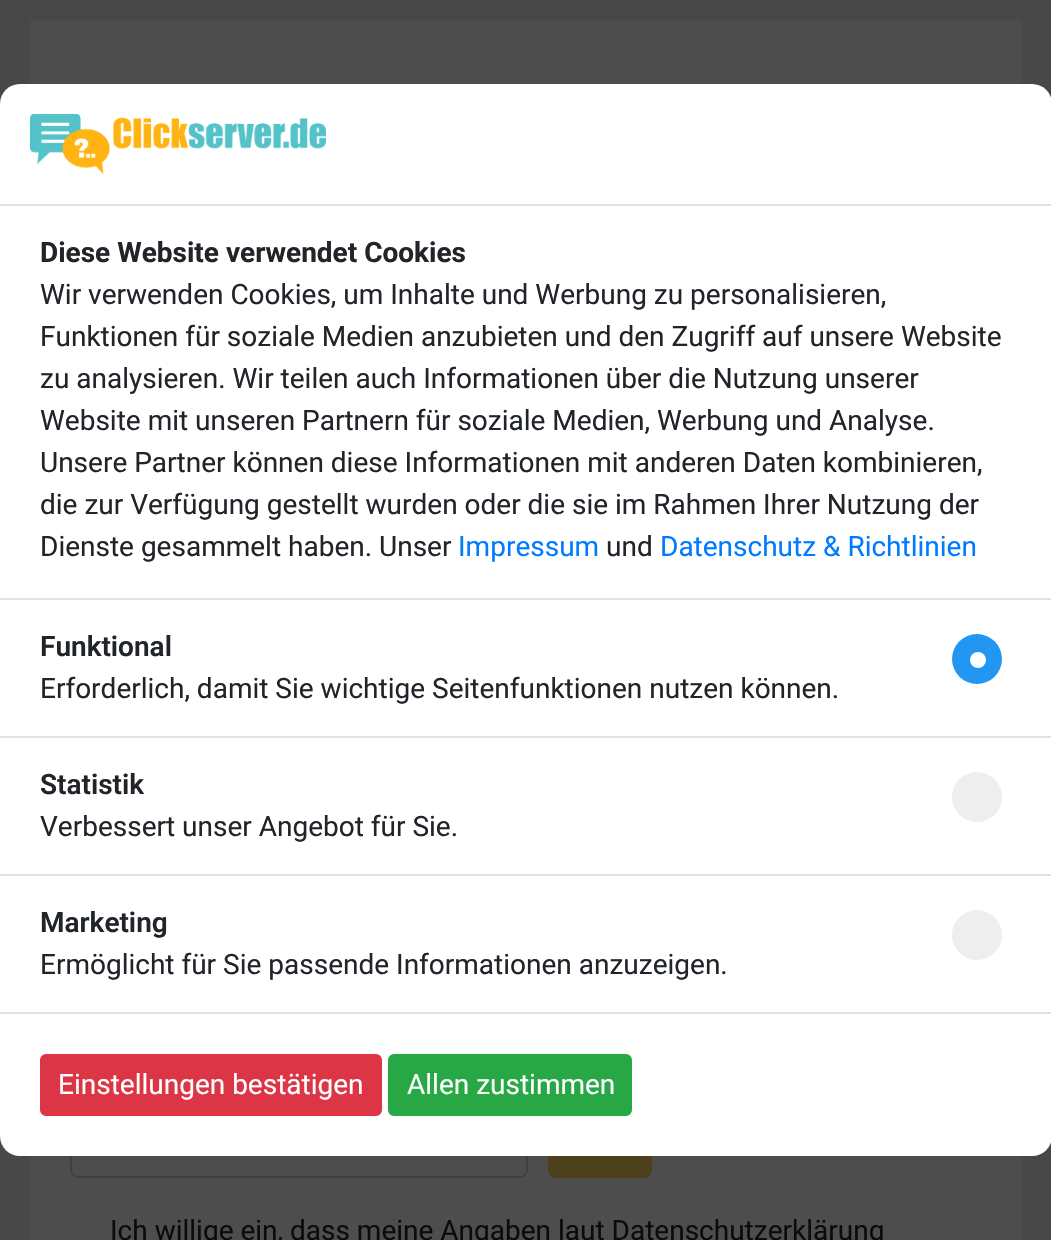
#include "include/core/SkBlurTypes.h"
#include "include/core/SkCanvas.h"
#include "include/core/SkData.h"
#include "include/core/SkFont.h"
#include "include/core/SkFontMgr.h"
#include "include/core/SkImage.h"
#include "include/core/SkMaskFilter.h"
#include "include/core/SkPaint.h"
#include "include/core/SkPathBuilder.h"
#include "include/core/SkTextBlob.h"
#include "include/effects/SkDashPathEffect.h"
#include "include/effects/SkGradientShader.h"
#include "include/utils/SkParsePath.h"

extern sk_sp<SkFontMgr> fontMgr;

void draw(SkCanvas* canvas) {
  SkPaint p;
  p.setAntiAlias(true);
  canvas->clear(SkColorSetRGB(72, 72, 72));
  p.setColor(SkColorSetRGB(77, 77, 77));
  canvas->drawRect(SkRect::MakeLTRB(30, 1156, 1022, 1240), p);
  p.setStyle(SkPaint::kStroke_Style);
  p.setStrokeWidth(2);
  p.setColor(SkColorSetRGB(62, 64, 65));
  canvas->drawRoundRect(SkRect::MakeLTRB(71, 1103, 527, 1177), 7, 7, p);
  p.setStyle(SkPaint::kFill_Style);
  p.setColor(SkColorSetRGB(77, 65, 28));
  canvas->drawRoundRect(SkRect::MakeLTRB(549, 1103, 651, 1177), 7, 7, p);
  p.setStyle(SkPaint::kStroke_Style);
  canvas->drawRoundRect(SkRect::MakeLTRB(549, 1103, 651, 1177), 7, 7, p);
  p.setStyle(SkPaint::kFill_Style);
  p.setColor(SK_ColorWHITE);
  canvas->drawRoundRect(SkRect::MakeLTRB(0, 84, 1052, 1156), 20, 20, p);
  p.setColor(SkColorSetRGB(226, 226, 226));
  canvas->drawRect(SkRect::MakeLTRB(0, 204, 1051, 206), p);
  canvas->drawImageRect(SkImages::DeferredFromEncodedData(SkData::MakeFromFileName("images/1.png")), SkRect::MakeLTRB(30, 114, 326, 174), SkSamplingOptions());
  p.setColor(SkColorSetRGB(222, 226, 230));
  canvas->drawRect(SkRect::MakeLTRB(0, 598, 1051, 600), p);
  canvas->drawRect(SkRect::MakeLTRB(0, 736, 1051, 738), p);
  p.setColor(SkColorSetRGB(33, 150, 243));
  canvas->drawCircle(977, 659, 25, p);
  p.setColor(SK_ColorWHITE);
  canvas->drawCircle(978, 660, 8, p);
  p.setColor(SkColorSetRGB(222, 226, 230));
  canvas->drawRect(SkRect::MakeLTRB(0, 874, 1051, 876), p);
  p.setColor(SkColorSetRGB(238, 238, 238));
  canvas->drawCircle(977, 797, 25, p);
  p.setColor(SkColorSetRGB(222, 226, 230));
  canvas->drawRect(SkRect::MakeLTRB(0, 1012, 1051, 1014), p);
  p.setColor(SkColorSetRGB(238, 238, 238));
  canvas->drawCircle(977, 935, 25, p);
  p.setColor(SkColorSetRGB(220, 53, 69));
  canvas->drawRoundRect(SkRect::MakeLTRB(41, 1055, 381, 1115), 5, 5, p);
  p.setStyle(SkPaint::kStroke_Style);
  canvas->drawRoundRect(SkRect::MakeLTRB(41, 1055, 381, 1115), 5, 5, p);
  p.setStyle(SkPaint::kFill_Style);
  p.setColor(SkColorSetRGB(40, 167, 69));
  canvas->drawRoundRect(SkRect::MakeLTRB(389, 1055, 631, 1115), 5, 5, p);
  p.setStyle(SkPaint::kStroke_Style);
  canvas->drawRoundRect(SkRect::MakeLTRB(389, 1055, 631, 1115), 5, 5, p);
  p.setStyle(SkPaint::kFill_Style);
  p.setColor(SkColorSetRGB(77, 77, 77));
  canvas->drawRect(SkRect::MakeLTRB(30, 20, 1022, 84), p);
  SkFont font1(fontMgr->matchFamilyStyle("Roboto", SkFontStyle::Bold()), 28);
  font1.setSubpixel(true);
  p.setColor(SkColorSetRGB(33, 37, 41));
  canvas->drawString("Diese Website verwendet Cookies", 40, 262, font1, p);
  SkFont font2(fontMgr->matchFamilyStyle("Roboto", SkFontStyle::Normal()), 28);
  font2.setSubpixel(true);
  canvas->drawString("Wir verwenden Cookies, um Inhalte und Werbung zu personalisieren,", 40, 304, font2, p);
  canvas->drawString("Funktionen für soziale Medien anzubieten und den Zugriff auf unsere Website", 40, 346, font2, p);
  canvas->drawString("zu analysieren. Wir teilen auch Informationen über die Nutzung unserer", 40, 388, font2, p);
  canvas->drawString("Website mit unseren Partnern für soziale Medien, Werbung und Analyse.", 40, 430, font2, p);
  canvas->drawString("Unsere Partner können diese Informationen mit anderen Daten kombinieren,", 40, 472, font2, p);
  canvas->drawString("die zur Verfügung gestellt wurden oder die sie im Rahmen Ihrer Nutzung der", 40, 514, font2, p);
  canvas->drawString("Dienste gesammelt haben. Unser", 40, 556, font2, p);
  p.setColor(SkColorSetRGB(0, 123, 255));
  canvas->drawString("Impressum", 458, 556, font2, p);
  p.setColor(SkColorSetRGB(33, 37, 41));
  canvas->drawString("und", 606, 556, font2, p);
  p.setColor(SkColorSetRGB(0, 123, 255));
  canvas->drawString("Datenschutz & Richtlinien", 660, 556, font2, p);
  SkFont font3(fontMgr->matchFamilyStyle("Roboto", SkFontStyle(600, SkFontStyle::kNormal_Width, SkFontStyle::kUpright_Slant)), 28);
  font3.setSubpixel(true);
  p.setColor(SkColorSetRGB(33, 37, 41));
  canvas->drawString("Funktional", 40, 656, font3, p);
  canvas->drawString("Erforderlich, damit Sie wichtige Seitenfunktionen nutzen können.", 40, 698, font2, p);
  canvas->drawString("Statistik", 40, 794, font3, p);
  canvas->drawString("Verbessert unser Angebot für Sie.", 40, 836, font2, p);
  canvas->drawString("Marketing", 40, 932, font3, p);
  canvas->drawString("Ermöglicht für Sie passende Informationen anzuzeigen.", 40, 974, font2, p);
  p.setColor(SK_ColorWHITE);
  canvas->drawString("Einstellungen bestätigen", 58, 1094, font2, p);
  canvas->drawString("Allen zustimmen", 407, 1094, font2, p);
  p.setColor(SkColorSetRGB(10, 11, 12));
  canvas->drawString("Ich willige ein, dass meine Angaben laut Datenschutzerklärung", 110, 1240, font2, p);
}
